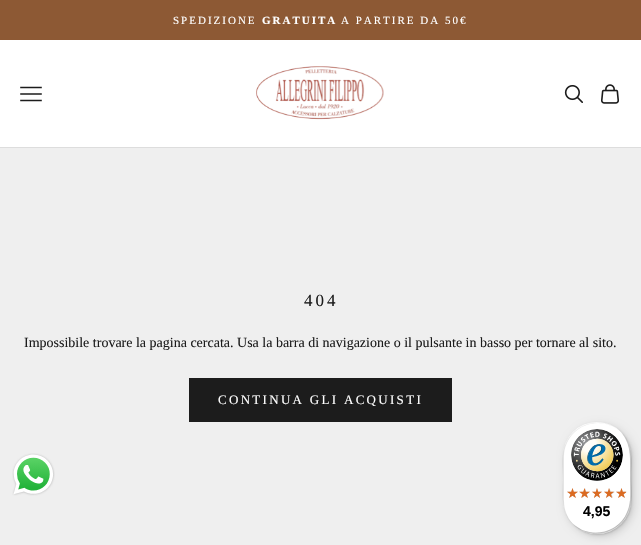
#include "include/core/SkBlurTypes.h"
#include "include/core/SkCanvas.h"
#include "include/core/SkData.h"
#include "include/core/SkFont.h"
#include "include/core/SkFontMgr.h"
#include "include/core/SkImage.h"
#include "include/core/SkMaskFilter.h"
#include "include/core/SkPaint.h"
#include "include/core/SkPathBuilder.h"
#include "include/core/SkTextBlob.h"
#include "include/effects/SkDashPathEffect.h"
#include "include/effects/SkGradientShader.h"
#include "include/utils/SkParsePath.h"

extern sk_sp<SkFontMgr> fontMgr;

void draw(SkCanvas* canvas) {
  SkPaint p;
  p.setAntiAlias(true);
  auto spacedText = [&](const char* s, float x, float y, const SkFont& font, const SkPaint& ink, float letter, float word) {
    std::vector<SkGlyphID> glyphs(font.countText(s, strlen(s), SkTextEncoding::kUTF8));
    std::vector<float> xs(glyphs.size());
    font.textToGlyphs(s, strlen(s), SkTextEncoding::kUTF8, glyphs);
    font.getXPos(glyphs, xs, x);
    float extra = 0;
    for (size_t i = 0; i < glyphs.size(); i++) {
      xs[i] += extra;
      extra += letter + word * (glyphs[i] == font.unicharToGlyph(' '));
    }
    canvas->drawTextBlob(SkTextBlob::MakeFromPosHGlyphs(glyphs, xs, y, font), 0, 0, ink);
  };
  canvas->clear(SkColorSetRGB(239, 239, 239));
  p.setColor(SkColorSetRGB(141, 89, 52));
  canvas->drawRect(SkRect::MakeLTRB(0, 0, 641, 40), p);
  p.setColor(SK_ColorWHITE);
  canvas->drawRect(SkRect::MakeLTRB(0, 40, 641, 147), p);
  p.setColor(SkColorSetRGB(221, 221, 221));
  canvas->drawRect(SkRect::MakeLTRB(0, 147, 641, 148), p);
  p.setStyle(SkPaint::kStroke_Style);
  p.setStrokeWidth(1.6f);
  p.setStrokeCap(SkPaint::kSquare_Cap);
  p.setColor(SkColorSetRGB(28, 28, 28));
  canvas->drawPath(SkPathBuilder().moveTo(21, 100.5f).lineTo(41, 100.5f).moveTo(21, 94).lineTo(41, 94).moveTo(21, 87.5f).lineTo(41, 87.5f).detach(), p);
  canvas->drawImageRect(SkImages::DeferredFromEncodedData(SkData::MakeFromFileName("images/1.png")), SkRect::MakeLTRB(256, 66, 384, 120), SkSamplingOptions());
  canvas->drawImageRect(SkImages::DeferredFromEncodedData(SkData::MakeFromFileName("images/2.png")), SkRect::MakeLTRB(564, 85, 583, 103), SkSamplingOptions());
  canvas->drawImageRect(SkImages::DeferredFromEncodedData(SkData::MakeFromFileName("images/3.png")), SkRect::MakeLTRB(601, 84, 619, 104), SkSamplingOptions());
  p.setStyle(SkPaint::kFill_Style);
  canvas->drawRect(SkRect::MakeLTRB(189.5f, 378.5f, 451.5f, 421.5f), p);
  p.setStyle(SkPaint::kStroke_Style);
  p.setStrokeWidth(1);
  p.setStrokeCap(SkPaint::kButt_Cap);
  canvas->drawRect(SkRect::MakeLTRB(189.5f, 378.5f, 451.5f, 421.5f), p);
  canvas->drawImageRect(SkImages::DeferredFromEncodedData(SkData::MakeFromFileName("images/4.png")), SkRect::MakeLTRB(12, 453, 55, 496), SkSamplingOptions());
  p.setStyle(SkPaint::kFill_Style);
  p.setColor(SkColorSetARGB(38, 0, 0, 0));
  p.setMaskFilter(SkMaskFilter::MakeBlur(kNormal_SkBlurStyle, 4));
  canvas->drawRoundRect(SkRect::MakeLTRB(566, 425, 634, 537), 34, 34, p);
  p.setMaskFilter(nullptr);
  p.setMaskFilter(SkMaskFilter::MakeBlur(kNormal_SkBlurStyle, 1));
  canvas->drawRoundRect(SkRect::MakeLTRB(564, 423, 632, 535), 34, 34, p);
  p.setMaskFilter(nullptr);
  p.setColor(SK_ColorWHITE);
  canvas->drawRoundRect(SkRect::MakeLTRB(563, 422, 631, 534), 34, 34, p);
  p.setColor(SkColorSetARGB(26, 0, 0, 0));
  canvas->drawPath(SkPathBuilder().moveTo(598, 423).cubicTo(606, 423, 614, 426, 620, 431).cubicTo(603, 416, 575, 422, 566, 443).cubicTo(561, 453, 563, 467, 563, 478).cubicTo(563, 493, 560, 510, 572, 523).cubicTo(567, 517, 564, 509, 564, 501).lineTo(564, 457).cubicTo(564, 438, 579, 423, 598, 423).close().detach(), p);
  p.setColor(SkColorSetARGB(51, 0, 0, 0));
  canvas->drawPath(SkPathBuilder().moveTo(574, 525).cubicTo(591, 540, 619, 534, 628, 513).cubicTo(633, 503, 631, 489, 631, 478).cubicTo(631, 463, 634, 446, 622, 433).cubicTo(632, 446, 630, 462, 630, 477).cubicTo(630, 488, 632, 502, 627, 512).cubicTo(619, 533, 591, 539, 574, 525).close().detach(), p);
  p.setColor(SkColorSetARGB(51, 50, 50, 50));
  canvas->drawPath(SkPathBuilder().moveTo(570, 521).cubicTo(577, 529, 586, 534, 597, 534).cubicTo(616, 534, 631, 519, 631, 500).lineTo(631, 456).cubicTo(631, 445, 626, 436, 618, 429).cubicTo(625, 436, 630, 445, 630, 455).lineTo(630, 499).cubicTo(630, 518, 615, 533, 596, 533).cubicTo(586, 533, 577, 528, 570, 521).close().detach(), p);
  p.setColor(SkColorSetARGB(77, 255, 255, 255));
  canvas->drawPath(SkPathBuilder().moveTo(597, 422).cubicTo(615, 422, 630, 437, 630, 456).lineTo(630, 500).cubicTo(630, 518, 615, 534, 596, 534).lineTo(597, 534).cubicTo(616, 534, 631, 519, 631, 500).lineTo(631, 456).cubicTo(631, 437, 616, 422, 597, 422).close().detach(), p);
  canvas->drawImageRect(SkImages::DeferredFromEncodedData(SkData::MakeFromFileName("images/5.png")), SkRect::MakeLTRB(571, 429, 623, 481), SkSamplingOptions());
  canvas->drawImageRect(SkImages::DeferredFromEncodedData(SkData::MakeFromFileName("images/6.png")), SkRect::MakeLTRB(567, 488, 578, 498), SkSamplingOptions());
  canvas->drawImageRect(SkImages::DeferredFromEncodedData(SkData::MakeFromFileName("images/7.png")), SkRect::MakeLTRB(580, 488, 590, 498), SkSamplingOptions());
  canvas->drawImageRect(SkImages::DeferredFromEncodedData(SkData::MakeFromFileName("images/8.png")), SkRect::MakeLTRB(592, 488, 602, 498), SkSamplingOptions());
  canvas->drawImageRect(SkImages::DeferredFromEncodedData(SkData::MakeFromFileName("images/9.png")), SkRect::MakeLTRB(604, 488, 615, 498), SkSamplingOptions());
  canvas->drawImageRect(SkImages::DeferredFromEncodedData(SkData::MakeFromFileName("images/9.png")), SkRect::MakeLTRB(616, 488, 627, 498), SkSamplingOptions());
  canvas->drawImageRect(SkImages::DeferredFromEncodedData(SkData::MakeFromFileName("images/10.png")), SkRect::MakeLTRB(567, 488, 578, 498), SkSamplingOptions());
  canvas->drawImageRect(SkImages::DeferredFromEncodedData(SkData::MakeFromFileName("images/11.png")), SkRect::MakeLTRB(579, 488, 590, 498), SkSamplingOptions());
  canvas->drawImageRect(SkImages::DeferredFromEncodedData(SkData::MakeFromFileName("images/12.png")), SkRect::MakeLTRB(592, 488, 602, 498), SkSamplingOptions());
  canvas->drawImageRect(SkImages::DeferredFromEncodedData(SkData::MakeFromFileName("images/13.png")), SkRect::MakeLTRB(604, 488, 614, 498), SkSamplingOptions());
  canvas->drawImageRect(SkImages::DeferredFromEncodedData(SkData::MakeFromFileName("images/14.png")), SkRect::MakeLTRB(616, 488, 626, 498), SkSamplingOptions());
  SkFont font1(fontMgr->matchFamilyStyle("Liberation Serif", SkFontStyle::Normal()), 11);
  font1.setSubpixel(true);
  p.setColor(SK_ColorWHITE);
  spacedText("SPEDIZIONE", 173, 24, font1, p, 2, 0);
  SkFont font2(fontMgr->matchFamilyStyle("Liberation Serif", SkFontStyle::Bold()), 11);
  font2.setSubpixel(true);
  spacedText("GRATUITA", 262, 24, font2, p, 2, 0);
  spacedText("A PARTIRE DA 50€", 341, 24, font1, p, 2, 0);
  SkFont font3(fontMgr->matchFamilyStyle("Liberation Serif", SkFontStyle::Normal()), 17);
  font3.setSubpixel(true);
  p.setColor(SkColorSetRGB(28, 28, 28));
  spacedText("404", 304, 306, font3, p, 3, 0);
  SkFont font4(fontMgr->matchFamilyStyle("Liberation Serif", SkFontStyle::Normal()), 14);
  font4.setSubpixel(true);
  canvas->drawString("Impossibile trovare la pagina cercata. Usa la barra di navigazione o il pulsante in basso per tornare al sito.", 24, 347, font4, p);
  SkFont font5(fontMgr->matchFamilyStyle("Liberation Serif", SkFontStyle::Normal()), 13);
  font5.setSubpixel(true);
  p.setColor(SK_ColorWHITE);
  spacedText("CONTINUA GLI ACQUISTI", 218, 404, font5, p, 2.3f, 0);
  SkFont font6(fontMgr->matchFamilyStyle("Liberation Sans", SkFontStyle::Bold()), 14);
  font6.setSubpixel(true);
  p.setColor(SK_ColorBLACK);
  canvas->drawString("4,95", 583, 516, font6, p);
}
